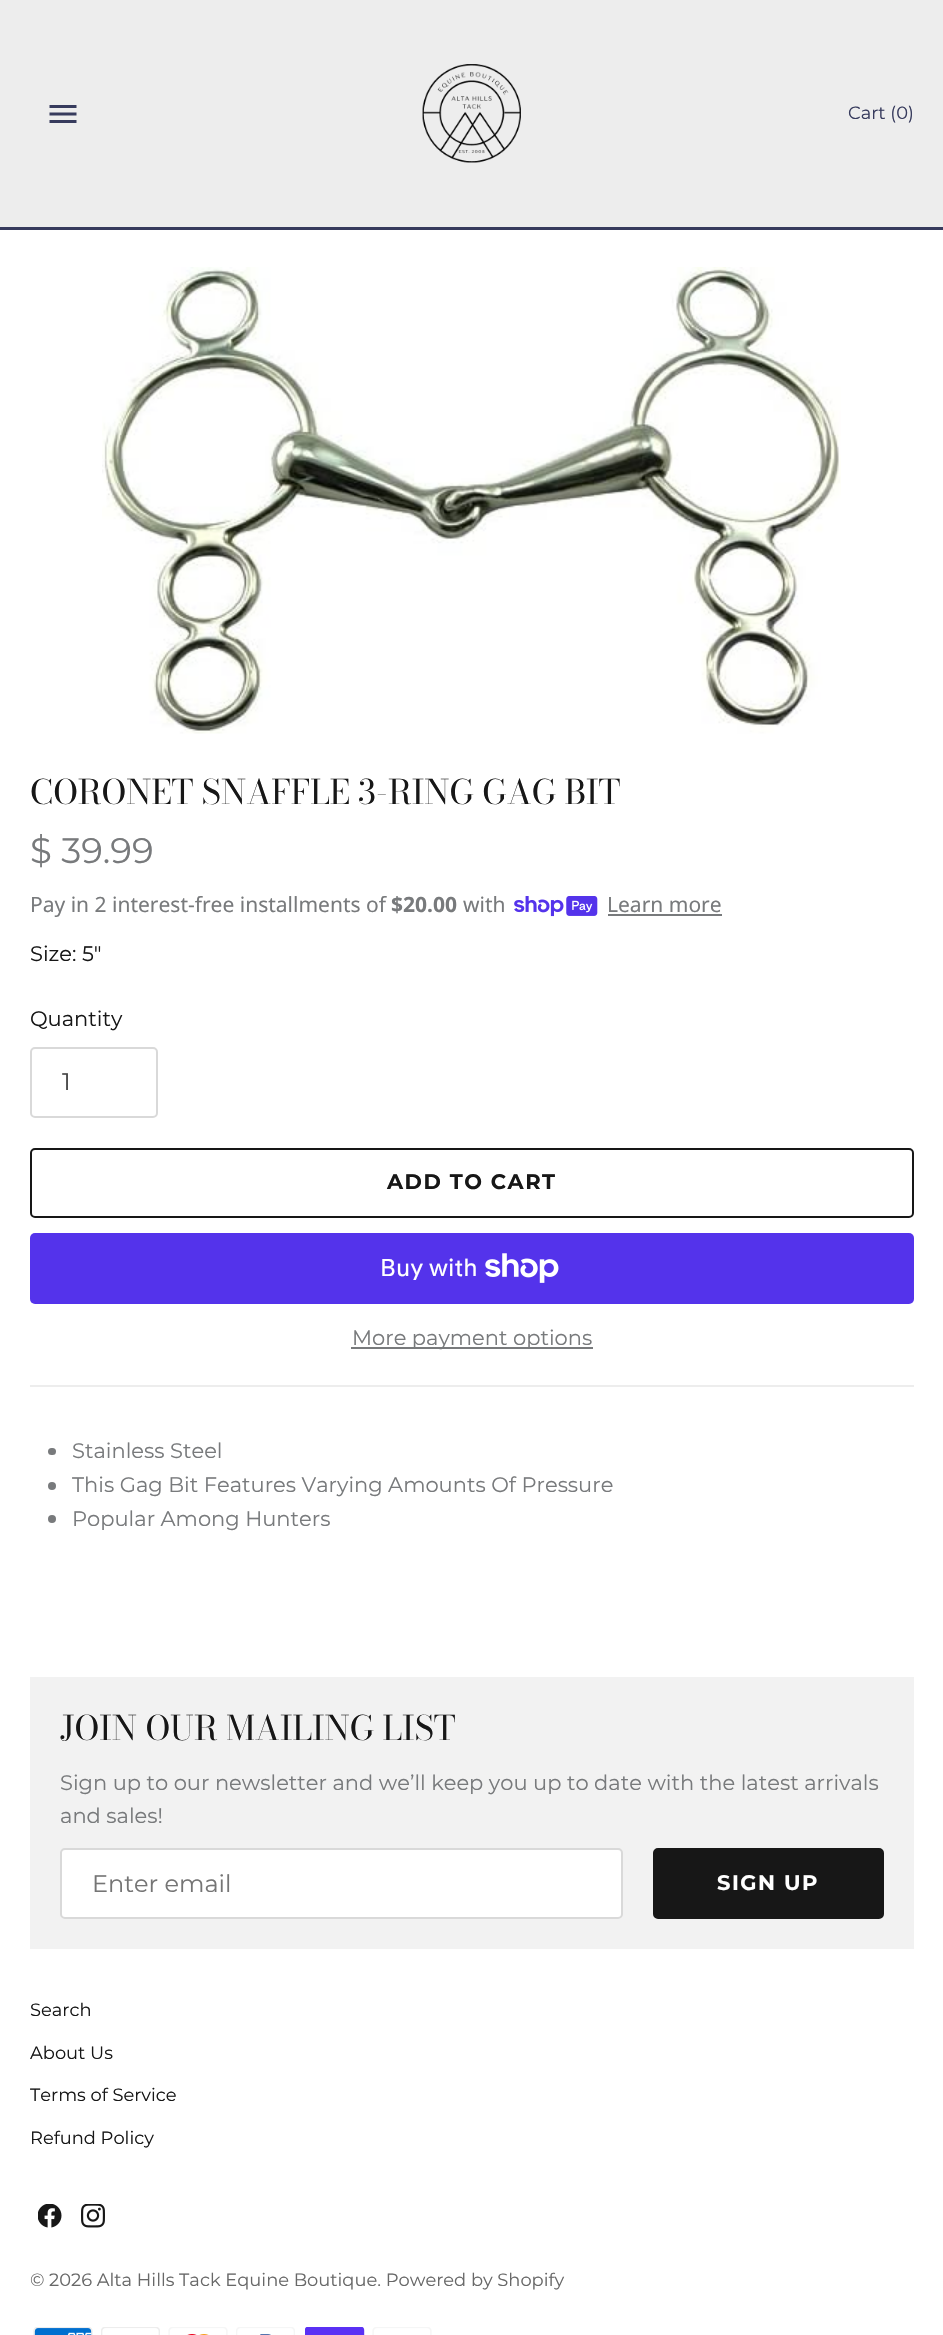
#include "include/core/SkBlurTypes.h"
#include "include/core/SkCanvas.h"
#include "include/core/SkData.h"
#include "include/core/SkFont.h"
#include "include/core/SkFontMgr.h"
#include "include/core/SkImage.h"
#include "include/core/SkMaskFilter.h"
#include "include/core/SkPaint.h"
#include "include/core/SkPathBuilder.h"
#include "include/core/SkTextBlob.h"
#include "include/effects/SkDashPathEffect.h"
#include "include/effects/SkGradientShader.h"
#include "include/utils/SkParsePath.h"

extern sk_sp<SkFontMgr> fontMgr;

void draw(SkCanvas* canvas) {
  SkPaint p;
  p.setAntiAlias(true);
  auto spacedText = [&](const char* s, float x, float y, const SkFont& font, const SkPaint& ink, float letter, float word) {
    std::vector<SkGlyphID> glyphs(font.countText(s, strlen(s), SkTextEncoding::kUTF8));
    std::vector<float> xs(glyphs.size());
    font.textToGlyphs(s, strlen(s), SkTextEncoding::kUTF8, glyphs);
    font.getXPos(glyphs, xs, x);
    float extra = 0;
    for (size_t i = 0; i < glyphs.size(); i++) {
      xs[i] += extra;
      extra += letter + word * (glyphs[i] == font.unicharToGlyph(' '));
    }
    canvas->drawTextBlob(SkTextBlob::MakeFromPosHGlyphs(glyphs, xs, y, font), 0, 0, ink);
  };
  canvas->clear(SK_ColorWHITE);
  p.setColor(SkColorSetRGB(237, 237, 237));
  canvas->drawRect(SkRect::MakeLTRB(0, 0, 943, 227), p);
  canvas->drawImageRect(SkImages::DeferredFromEncodedData(SkData::MakeFromFileName("images/1.png")), SkRect::MakeLTRB(49, 105, 77, 123), SkSamplingOptions());
  canvas->drawImageRect(SkImages::DeferredFromEncodedData(SkData::MakeFromFileName("images/2.png")), SkRect::MakeLTRB(422, 64, 521, 163), SkSamplingOptions());
  p.setColor(SkColorSetRGB(55, 59, 93));
  canvas->drawRect(SkRect::MakeLTRB(0, 227, 943, 230), p);
  canvas->drawImageRect(SkImages::DeferredFromEncodedData(SkData::MakeFromFileName("images/3.png")), SkRect::MakeLTRB(102, 267, 841, 734), SkSamplingOptions());
  canvas->drawImageRect(SkImages::DeferredFromEncodedData(SkData::MakeFromFileName("images/4.png")), SkRect::MakeLTRB(514, 896, 598, 917), SkSamplingOptions());
  p.setColor(SkColorSetRGB(120, 122, 124));
  canvas->drawRect(SkRect::MakeLTRB(608, 914, 722, 916), p);
  p.setStyle(SkPaint::kStroke_Style);
  p.setStrokeWidth(2);
  p.setColor(SkColorSetRGB(217, 217, 217));
  canvas->drawRoundRect(SkRect::MakeLTRB(31, 1048, 157, 1117), 4, 4, p);
  p.setColor(SkColorSetRGB(23, 23, 23));
  canvas->drawRoundRect(SkRect::MakeLTRB(31, 1149, 913, 1217), 4, 4, p);
  p.setStyle(SkPaint::kFill_Style);
  p.setColor(SkColorSetRGB(84, 51, 235));
  canvas->drawRoundRect(SkRect::MakeLTRB(30, 1233, 914, 1304), 5, 5, p);
  canvas->drawImageRect(SkImages::DeferredFromEncodedData(SkData::MakeFromFileName("images/5.png")), SkRect::MakeLTRB(485, 1253, 559, 1283), SkSamplingOptions());
  p.setColor(SkColorSetRGB(120, 122, 124));
  canvas->drawRect(SkRect::MakeLTRB(351, 1347, 593, 1349), p);
  p.setColor(SkColorSetRGB(237, 237, 237));
  canvas->drawRect(SkRect::MakeLTRB(30, 1385, 914, 1387), p);
  p.setColor(SkColorSetRGB(120, 122, 124));
  canvas->drawRoundRect(SkRect::MakeLTRB(48, 1448, 56, 1455), 3.5f, 3.5f, p);
  canvas->drawCircle(52, 1486, 4, p);
  canvas->drawCircle(52, 1519, 4, p);
  p.setColor(SkColorSetRGB(242, 242, 242));
  canvas->drawRect(SkRect::MakeLTRB(30, 1677, 914, 1949), p);
  p.setColor(SK_ColorWHITE);
  canvas->drawRoundRect(SkRect::MakeLTRB(60, 1848, 623, 1919), 5, 5, p);
  p.setStyle(SkPaint::kStroke_Style);
  p.setColor(SkColorSetARGB(38, 0, 0, 0));
  canvas->drawRoundRect(SkRect::MakeLTRB(61, 1849, 622, 1918), 4, 4, p);
  p.setStyle(SkPaint::kFill_Style);
  p.setColor(SkColorSetRGB(23, 23, 23));
  canvas->drawRoundRect(SkRect::MakeLTRB(654, 1849, 883, 1918), 4, 4, p);
  p.setStyle(SkPaint::kStroke_Style);
  canvas->drawRoundRect(SkRect::MakeLTRB(654, 1849, 883, 1918), 4, 4, p);
  canvas->drawImageRect(SkImages::DeferredFromEncodedData(SkData::MakeFromFileName("images/6.png")), SkRect::MakeLTRB(38, 2204, 62, 2228), SkSamplingOptions());
  canvas->drawImageRect(SkImages::DeferredFromEncodedData(SkData::MakeFromFileName("images/7.png")), SkRect::MakeLTRB(81, 2204, 105, 2228), SkSamplingOptions());
  canvas->drawImageRect(SkImages::DeferredFromEncodedData(SkData::MakeFromFileName("images/8.png")), SkRect::MakeLTRB(33, 2327, 93, 2335), SkSamplingOptions());
  canvas->drawImageRect(SkImages::DeferredFromEncodedData(SkData::MakeFromFileName("images/9.png")), SkRect::MakeLTRB(101, 2327, 160, 2335), SkSamplingOptions());
  canvas->drawImageRect(SkImages::DeferredFromEncodedData(SkData::MakeFromFileName("images/10.png")), SkRect::MakeLTRB(168, 2327, 228, 2335), SkSamplingOptions());
  canvas->drawImageRect(SkImages::DeferredFromEncodedData(SkData::MakeFromFileName("images/11.png")), SkRect::MakeLTRB(236, 2327, 295, 2335), SkSamplingOptions());
  canvas->drawImageRect(SkImages::DeferredFromEncodedData(SkData::MakeFromFileName("images/12.png")), SkRect::MakeLTRB(305, 2327, 365, 2335), SkSamplingOptions());
  canvas->drawImageRect(SkImages::DeferredFromEncodedData(SkData::MakeFromFileName("images/13.png")), SkRect::MakeLTRB(372, 2327, 432, 2335), SkSamplingOptions());
  SkFont font1(fontMgr->matchFamilyStyle("Montserrat", SkFontStyle::Normal()), 17.85f);
  font1.setSubpixel(true);
  p.setStyle(SkPaint::kFill_Style);
  p.setColor(SkColorSetRGB(55, 59, 93));
  canvas->drawString("Cart (0)", 848, 119, font1, p);
  SkFont font2(fontMgr->matchFamilyStyle("Bodoni Moda", SkFontStyle::Normal()), 33.6f);
  font2.setSubpixel(true);
  p.setColor(SkColorSetRGB(23, 23, 23));
  canvas->drawString("CORONET SNAFFLE 3-RING GAG BIT", 30, 804, font2, p);
  SkFont font3(fontMgr->matchFamilyStyle("Montserrat", SkFontStyle::Normal()), 35.5f);
  font3.setSubpixel(true);
  p.setColor(SkColorSetRGB(120, 122, 124));
  canvas->drawString("$ 39.99", 30, 863, font3, p);
  SkFont font4(fontMgr->matchFamilyStyle("Noto Sans", SkFontStyle::Normal()), 21);
  font4.setSubpixel(true);
  canvas->drawString("Pay in 2 interest-free installments of", 30, 912, font4, p);
  SkFont font5(fontMgr->matchFamilyStyle("Noto Sans", SkFontStyle::Bold()), 21);
  font5.setSubpixel(true);
  canvas->drawString("$20.00", 391, 912, font5, p);
  canvas->drawString("with", 463, 912, font4, p);
  canvas->drawString("Learn more", 607, 912, font4, p);
  SkFont font6(fontMgr->matchFamilyStyle("Montserrat", SkFontStyle::Normal()), 21);
  font6.setSubpixel(true);
  p.setColor(SkColorSetRGB(23, 23, 23));
  canvas->drawString("Size: 5\"", 30, 961, font6, p);
  canvas->drawString("Quantity", 30, 1026, font6, p);
  SkFont font7(fontMgr->matchFamilyStyle("Montserrat", SkFontStyle::Normal()), 24);
  font7.setSubpixel(true);
  p.setColor(SkColorSetRGB(68, 68, 68));
  canvas->drawString("1", 62, 1090, font7, p);
  SkFont font8(fontMgr->matchFamilyStyle("Montserrat", SkFontStyle::Bold()), 21);
  font8.setSubpixel(true);
  p.setColor(SkColorSetRGB(23, 23, 23));
  spacedText("ADD TO CART", 387, 1189, font8, p, 1.5f, 0);
  SkFont font9(fontMgr->matchFamilyStyle("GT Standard", SkFontStyle::Normal()), 24);
  font9.setSubpixel(true);
  p.setColor(SK_ColorWHITE);
  canvas->drawString("Buy with", 380, 1276, font9, p);
  p.setColor(SkColorSetRGB(120, 122, 124));
  canvas->drawString("More payment options", 352, 1345, font6, p);
  canvas->drawString("Stainless Steel", 72, 1458, font6, p);
  canvas->drawString("This Gag Bit Features Varying Amounts Of Pressure", 72, 1492, font6, p);
  canvas->drawString("Popular Among Hunters", 72, 1526, font6, p);
  p.setColor(SkColorSetRGB(23, 23, 23));
  canvas->drawString("JOIN OUR MAILING LIST", 60, 1740, font2, p);
  p.setColor(SkColorSetRGB(120, 122, 124));
  canvas->drawString("Sign up to our newsletter and we’ll keep you up to date with the latest arrivals", 60, 1790, font6, p);
  canvas->drawString("and sales!", 60, 1823, font6, p);
  p.setColor(SkColorSetRGB(117, 117, 117));
  canvas->drawString("Enter email", 92, 1892, font7, p);
  p.setColor(SK_ColorWHITE);
  spacedText("SIGN UP", 717, 1890, font8, p, 1.5f, 0);
  p.setColor(SkColorSetRGB(23, 23, 23));
  canvas->drawString("Search", 30, 2016, font1, p);
  canvas->drawString("About Us", 30, 2059, font1, p);
  canvas->drawString("Terms of Service", 30, 2101, font1, p);
  canvas->drawString("Refund Policy", 30, 2144, font1, p);
  p.setColor(SkColorSetRGB(104, 104, 104));
  canvas->drawString("© 2026 Alta Hills Tack Equine Boutique. Powered by Shopify", 30, 2286, font1, p);
}
